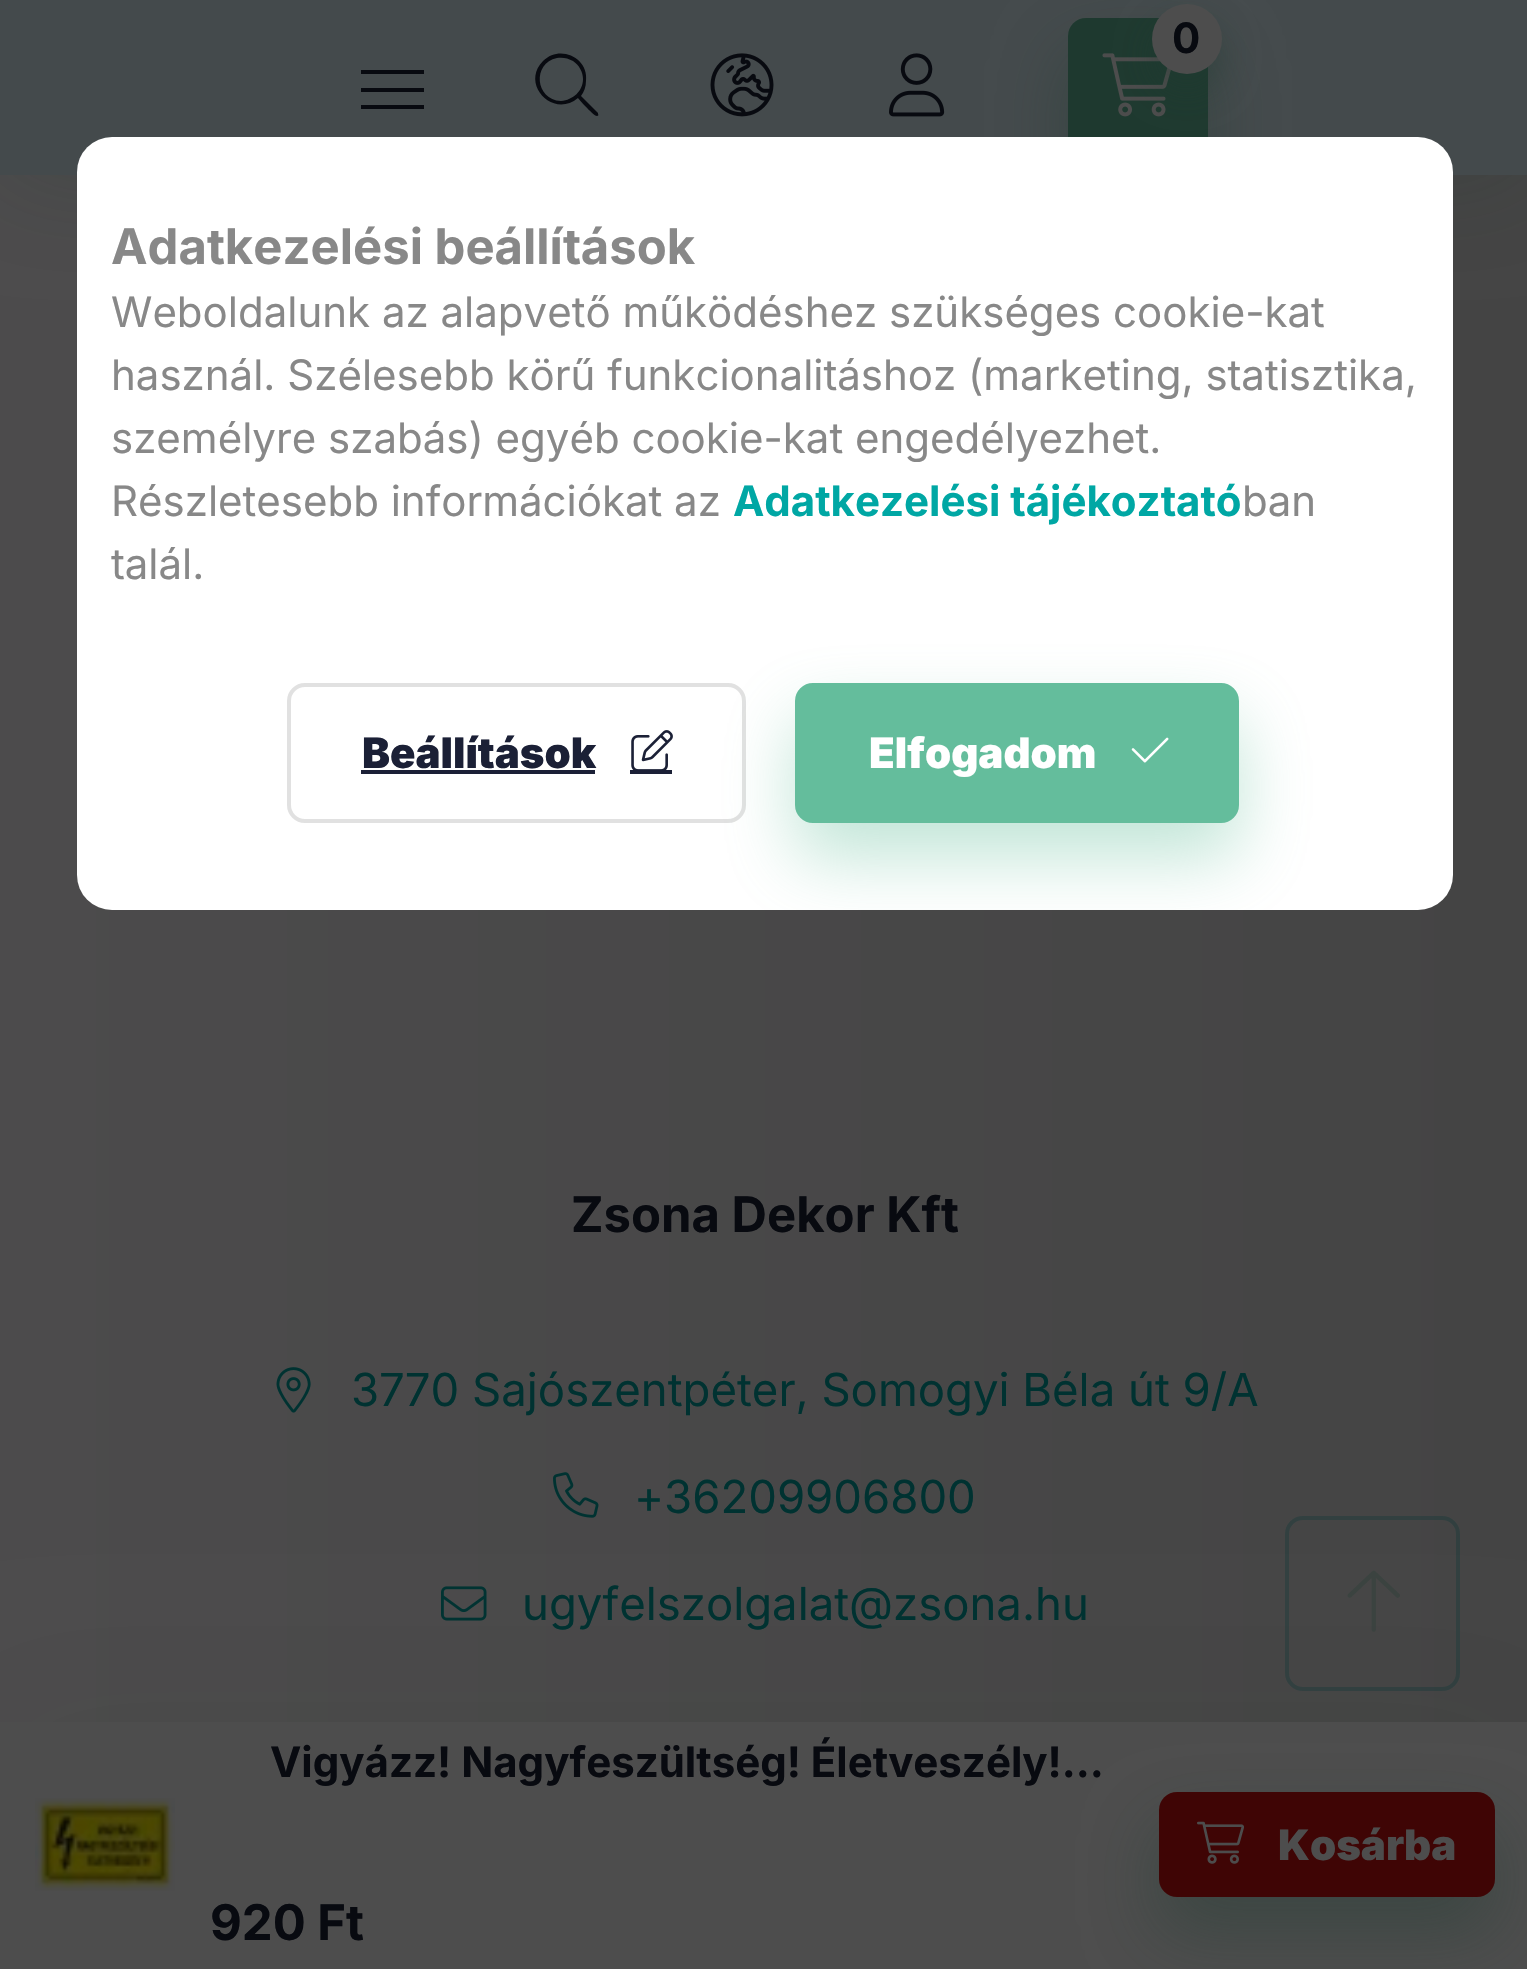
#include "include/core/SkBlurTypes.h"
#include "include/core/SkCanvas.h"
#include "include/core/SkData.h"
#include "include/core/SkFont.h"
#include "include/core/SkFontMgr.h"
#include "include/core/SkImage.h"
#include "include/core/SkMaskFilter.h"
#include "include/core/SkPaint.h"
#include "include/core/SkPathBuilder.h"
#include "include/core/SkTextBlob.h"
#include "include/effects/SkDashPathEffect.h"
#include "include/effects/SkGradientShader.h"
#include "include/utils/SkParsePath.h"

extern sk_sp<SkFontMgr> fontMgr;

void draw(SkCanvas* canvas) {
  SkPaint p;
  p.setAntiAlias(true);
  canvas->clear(SK_ColorWHITE);
  {
    const SkColor colors[] = {SkColorSetRGB(76, 75, 76), SkColorSetRGB(68, 68, 68)};
    const float stops[] = {0, 1};
    const SkPoint ends[] = {{0, 985}, {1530, 985}};
    p.setShader(SkGradientShader::MakeLinear(ends, colors, stops, 2, SkTileMode::kClamp));
    p.setAlpha(255);
  }
  canvas->drawRect(SkRect::MakeLTRB(0, 175, 1527, 1722), p);
  p.setShader(nullptr);
  p.setColor(SkColorSetARGB(51, 30, 57, 47));
  p.setMaskFilter(SkMaskFilter::MakeBlur(kNormal_SkBlurStyle, 52.5f));
  canvas->drawRect(SkRect::MakeLTRB(0, 0, 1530, 175), p);
  p.setMaskFilter(nullptr);
  p.setColor(SkColorSetRGB(68, 74, 76));
  canvas->drawRect(SkRect::MakeLTRB(0, 0, 1527, 175), p);
  p.setColor(SkColorSetARGB(102, 30, 57, 47));
  p.setMaskFilter(SkMaskFilter::MakeBlur(kNormal_SkBlurStyle, 35));
  canvas->drawRoundRect(SkRect::MakeLTRB(1068, 53, 1208, 193), 18, 18, p);
  p.setMaskFilter(nullptr);
  p.setColor(SkColorSetRGB(30, 57, 47));
  canvas->drawRoundRect(SkRect::MakeLTRB(1068, 18, 1208, 158), 18, 18, p);
  canvas->drawImageRect(SkImages::DeferredFromEncodedData(SkData::MakeFromFileName("images/1.png")), SkRect::MakeLTRB(1102, 53, 1171, 117), SkSamplingOptions());
  p.setColor(SkColorSetARGB(102, 30, 57, 47));
  p.setMaskFilter(SkMaskFilter::MakeBlur(kNormal_SkBlurStyle, 17.5f));
  canvas->drawRoundRect(SkRect::MakeLTRB(1152, 21, 1222, 91), 35, 35, p);
  p.setMaskFilter(nullptr);
  p.setColor(SkColorSetRGB(77, 77, 77));
  canvas->drawCircle(1187, 39, 35, p);
  p.setColor(SkColorSetRGB(8, 10, 16));
  canvas->drawRect(SkRect::MakeLTRB(361, 70, 424, 74), p);
  canvas->drawRect(SkRect::MakeLTRB(361, 88, 424, 92), p);
  canvas->drawRect(SkRect::MakeLTRB(361, 105, 424, 109), p);
  canvas->drawPath(SkPathBuilder().moveTo(598, 113).lineTo(581, 96).cubicTo(584, 92, 586, 87, 586, 81).cubicTo(589, 58, 560, 44, 543, 61).cubicTo(520, 84, 553, 119, 578, 98).cubicTo(580, 101, 595, 117, 597, 116).cubicTo(598, 116, 599, 115, 598, 114).close().moveTo(561, 101).cubicTo(535, 100, 532, 63, 557, 58).cubicTo(562, 57, 568, 58, 573, 61).cubicTo(579, 65, 583, 72, 583, 79).cubicTo(583, 91, 573, 100, 561, 101).close().detach(), p);
  canvas->drawImageRect(SkImages::DeferredFromEncodedData(SkData::MakeFromFileName("images/2.png")), SkRect::MakeLTRB(710, 53, 774, 117), SkSamplingOptions());
  canvas->drawImageRect(SkImages::DeferredFromEncodedData(SkData::MakeFromFileName("images/3.png")), SkRect::MakeLTRB(889, 53, 945, 117), SkSamplingOptions());
  canvas->drawImageRect(SkImages::DeferredFromEncodedData(SkData::MakeFromFileName("images/4.png")), SkRect::MakeLTRB(276, 1367, 311, 1413), SkSamplingOptions());
  canvas->drawImageRect(SkImages::DeferredFromEncodedData(SkData::MakeFromFileName("images/5.png")), SkRect::MakeLTRB(553, 1472, 599, 1518), SkSamplingOptions());
  canvas->drawImageRect(SkImages::DeferredFromEncodedData(SkData::MakeFromFileName("images/6.png")), SkRect::MakeLTRB(441, 1586, 487, 1621), SkSamplingOptions());
  p.setStyle(SkPaint::kStroke_Style);
  p.setStrokeWidth(4);
  p.setColor(SkColorSetARGB(71, 0, 50, 49));
  canvas->drawRoundRect(SkRect::MakeLTRB(1287, 1518, 1458, 1689), 16, 16, p);
  canvas->drawImageRect(SkImages::DeferredFromEncodedData(SkData::MakeFromFileName("images/11.png")), SkRect::MakeLTRB(1347, 1570, 1400, 1632), SkSamplingOptions());
  p.setStyle(SkPaint::kFill_Style);
  p.setColor(SkColorSetARGB(13, 30, 57, 47));
  p.setMaskFilter(SkMaskFilter::MakeBlur(kNormal_SkBlurStyle, 70));
  canvas->drawRect(SkRect::MakeLTRB(0, 1722, 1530, 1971), p);
  p.setMaskFilter(nullptr);
  p.setColor(SkColorSetRGB(77, 77, 77));
  canvas->drawRect(SkRect::MakeLTRB(0, 1722, 1527, 1969), p);
  canvas->drawImageRect(SkImages::DeferredFromEncodedData(SkData::MakeFromFileName("images/7.png")), SkRect::MakeLTRB(35, 1798, 175, 1891), SkSamplingOptions());
  p.setColor(SkColorSetARGB(102, 30, 57, 47));
  p.setMaskFilter(SkMaskFilter::MakeBlur(kNormal_SkBlurStyle, 35));
  canvas->drawRoundRect(SkRect::MakeLTRB(1159, 1827, 1495, 1932), 18, 18, p);
  p.setMaskFilter(nullptr);
  p.setColor(SkColorSetRGB(63, 5, 5));
  canvas->drawRoundRect(SkRect::MakeLTRB(1159, 1792, 1495, 1897), 18, 18, p);
  canvas->drawImageRect(SkImages::DeferredFromEncodedData(SkData::MakeFromFileName("images/8.png")), SkRect::MakeLTRB(1197, 1821, 1244, 1864), SkSamplingOptions());
  p.setColor(SK_ColorWHITE);
  canvas->drawRoundRect(SkRect::MakeLTRB(77, 137, 1453, 910), 35, 35, p);
  p.setStyle(SkPaint::kStroke_Style);
  p.setColor(SkColorSetRGB(225, 225, 225));
  canvas->drawRoundRect(SkRect::MakeLTRB(289, 685, 744, 821), 16, 16, p);
  p.setStyle(SkPaint::kFill_Style);
  p.setColor(SkColorSetRGB(27, 32, 54));
  canvas->drawRect(SkRect::MakeLTRB(361, 770, 595, 774), p);
  canvas->drawImageRect(SkImages::DeferredFromEncodedData(SkData::MakeFromFileName("images/9.png")), SkRect::MakeLTRB(631, 730, 673, 770), SkSamplingOptions());
  canvas->drawRect(SkRect::MakeLTRB(630, 770, 672, 774), p);
  canvas->save();
  canvas->clipPath(SkPathBuilder().moveTo(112, 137).lineTo(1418, 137).cubicTo(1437.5f, 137, 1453, 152.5f, 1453, 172).lineTo(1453, 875).cubicTo(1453, 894.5f, 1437.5f, 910, 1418, 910).lineTo(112, 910).cubicTo(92.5f, 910, 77, 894.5f, 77, 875).lineTo(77, 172).cubicTo(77, 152.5f, 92.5f, 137, 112, 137).close().detach(), true);
  p.setColor(SkColorSetARGB(102, 100, 189, 156));
  p.setMaskFilter(SkMaskFilter::MakeBlur(kNormal_SkBlurStyle, 35));
  canvas->drawRoundRect(SkRect::MakeLTRB(795, 718, 1239, 858), 18, 18, p);
  p.setMaskFilter(nullptr);
  canvas->restore();
  p.setColor(SkColorSetRGB(100, 189, 156));
  canvas->drawRoundRect(SkRect::MakeLTRB(797, 685, 1237, 821), 16, 16, p);
  p.setStyle(SkPaint::kStroke_Style);
  canvas->drawRoundRect(SkRect::MakeLTRB(797, 685, 1237, 821), 16, 16, p);
  canvas->drawImageRect(SkImages::DeferredFromEncodedData(SkData::MakeFromFileName("images/10.png")), SkRect::MakeLTRB(1131, 737, 1169, 763), SkSamplingOptions());
  SkFont font1(fontMgr->matchFamilyStyle("Inter", SkFontStyle::Bold()), 42);
  font1.setSubpixel(true);
  p.setStyle(SkPaint::kFill_Style);
  p.setColor(SkColorSetRGB(8, 10, 16));
  canvas->drawString("0", 1172, 53, font1, p);
  SkFont font2(fontMgr->matchFamilyStyle("Inter", SkFontStyle::Bold()), 49);
  font2.setSubpixel(true);
  canvas->drawString("Zsona Dekor Kft", 571, 1232, font2, p);
  SkFont font3(fontMgr->matchFamilyStyle("Inter", SkFontStyle::Normal()), 45.5f);
  font3.setSubpixel(true);
  p.setColor(SkColorSetRGB(0, 50, 49));
  canvas->drawString("3770 Sajószentpéter, Somogyi Béla út 9/A", 351, 1406, font3, p);
  canvas->drawString("+36209906800", 634, 1513, font3, p);
  canvas->drawString("ugyfelszolgalat@zsona.hu", 522, 1620, font3, p);
  p.setColor(SkColorSetRGB(8, 10, 16));
  canvas->drawString("Vigyázz! Nagyfeszültség! Életveszély!…", 270, 1777, font1, p);
  canvas->drawString("920 Ft", 210, 1940, font2, p);
  SkFont font4(fontMgr->matchFamilyStyle("Inter", SkFontStyle(900, SkFontStyle::kNormal_Width, SkFontStyle::kUpright_Slant)), 42);
  font4.setSubpixel(true);
  p.setColor(SkColorSetRGB(77, 77, 77));
  canvas->drawString("Kosárba", 1278, 1860, font4, p);
  p.setColor(SkColorSetRGB(136, 136, 136));
  canvas->drawString("Adatkezelési beállítások", 111, 264, font2, p);
  SkFont font5(fontMgr->matchFamilyStyle("Inter", SkFontStyle::Normal()), 42);
  font5.setSubpixel(true);
  canvas->drawString("Weboldalunk az alapvető működéshez szükséges cookie-kat", 111, 327, font5, p);
  canvas->drawString("használ. Szélesebb körű funkcionalitáshoz (marketing, statisztika,", 111, 390, font5, p);
  canvas->drawString("személyre szabás) egyéb cookie-kat engedélyezhet.", 111, 453, font5, p);
  canvas->drawString("Részletesebb információkat az", 111, 516, font5, p);
  p.setColor(SkColorSetRGB(0, 167, 164));
  canvas->drawString("Adatkezelési tájékoztató", 733, 516, font1, p);
  p.setColor(SkColorSetRGB(136, 136, 136));
  canvas->drawString("ban", 1242, 516, font5, p);
  canvas->drawString("talál.", 111, 579, font5, p);
  p.setColor(SkColorSetRGB(27, 32, 54));
  canvas->drawString("Beállítások", 362, 768, font4, p);
  p.setColor(SK_ColorWHITE);
  canvas->drawString("Elfogadom", 869, 768, font4, p);
}
